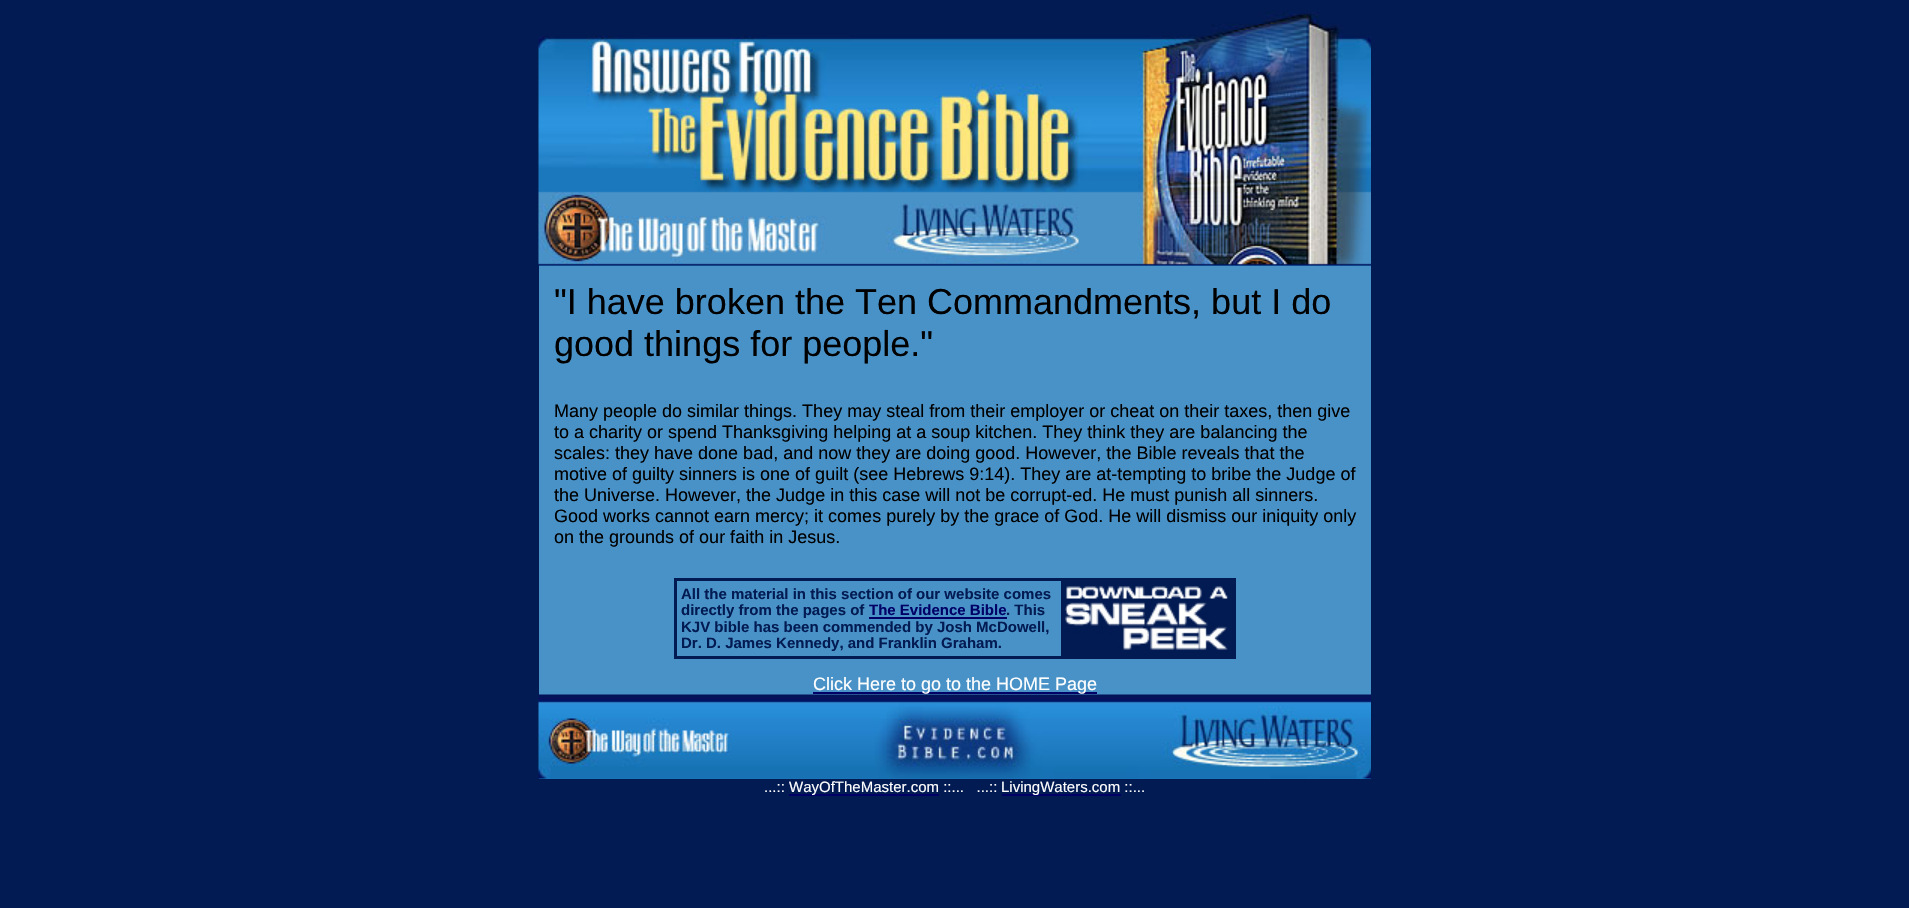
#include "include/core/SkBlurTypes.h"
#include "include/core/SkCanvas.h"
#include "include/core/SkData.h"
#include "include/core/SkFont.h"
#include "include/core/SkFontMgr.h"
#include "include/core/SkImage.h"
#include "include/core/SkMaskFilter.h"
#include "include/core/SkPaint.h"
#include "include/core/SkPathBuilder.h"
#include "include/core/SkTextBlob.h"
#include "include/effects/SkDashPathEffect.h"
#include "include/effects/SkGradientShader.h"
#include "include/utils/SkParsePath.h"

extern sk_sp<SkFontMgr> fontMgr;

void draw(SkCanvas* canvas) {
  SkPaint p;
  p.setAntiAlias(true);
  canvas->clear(SkColorSetRGB(2, 27, 83));
  p.setColor(SkColorSetRGB(26, 119, 188));
  canvas->drawRect(SkRect::MakeLTRB(539, 265, 1371, 266), p);
  canvas->drawImageRect(SkImages::DeferredFromEncodedData(SkData::MakeFromFileName("images/1.png")), SkRect::MakeLTRB(538, 12, 1371, 266), SkSamplingOptions());
  p.setColor(SkColorSetRGB(73, 146, 199));
  canvas->drawRect(SkRect::MakeLTRB(539, 266, 1371, 695), p);
  p.setColor(SkColorSetRGB(2, 27, 83));
  canvas->drawRect(SkRect::MakeLTRB(674, 578, 1236, 659), p);
  p.setColor(SkColorSetRGB(73, 146, 199));
  canvas->drawRect(SkRect::MakeLTRB(677, 581, 1061, 656), p);
  p.setColor(SkColorSetRGB(0, 0, 102));
  canvas->drawRect(SkRect::MakeLTRB(869, 617, 1007, 619), p);
  canvas->drawImageRect(SkImages::DeferredFromEncodedData(SkData::MakeFromFileName("images/2.png")), SkRect::MakeLTRB(1065, 586, 1228, 650), SkSamplingOptions());
  canvas->drawRect(SkRect::MakeLTRB(813, 692, 1097, 694), p);
  p.setColor(SkColorSetRGB(26, 119, 188));
  canvas->drawRect(SkRect::MakeLTRB(539, 778, 1371, 779), p);
  canvas->drawImageRect(SkImages::DeferredFromEncodedData(SkData::MakeFromFileName("images/3.png")), SkRect::MakeLTRB(538, 694, 1371, 779), SkSamplingOptions());
  p.setColor(SkColorSetRGB(0, 0, 102));
  canvas->drawRect(SkRect::MakeLTRB(789, 794, 939, 796), p);
  canvas->drawRect(SkRect::MakeLTRB(1002, 794, 1121, 796), p);
  SkFont font1(fontMgr->matchFamilyStyle("Liberation Sans", SkFontStyle::Normal()), 36);
  font1.setSubpixel(true);
  p.setColor(SK_ColorBLACK);
  canvas->drawString("\"I have broken the Ten Commandments, but I do", 554, 314, font1, p);
  canvas->drawString("good things for people.\"", 554, 356, font1, p);
  SkFont font2(fontMgr->matchFamilyStyle("Liberation Sans", SkFontStyle::Normal()), 18);
  font2.setSubpixel(true);
  canvas->drawString("Many people do similar things. They may steal from their employer or cheat on their taxes, then give", 554, 417, font2, p);
  canvas->drawString("to a charity or spend Thanksgiving helping at a soup kitchen. They think they are balancing the", 554, 438, font2, p);
  canvas->drawString("scales: they have done bad, and now they are doing good. However, the Bible reveals that the", 554, 459, font2, p);
  canvas->drawString("motive of guilty sinners is one of guilt (see Hebrews 9:14). They are at-tempting to bribe the Judge of", 554, 480, font2, p);
  canvas->drawString("the Universe. However, the Judge in this case will not be corrupt-ed. He must punish all sinners.", 554, 501, font2, p);
  canvas->drawString("Good works cannot earn mercy; it comes purely by the grace of God. He will dismiss our iniquity only", 554, 522, font2, p);
  canvas->drawString("on the grounds of our faith in Jesus.", 554, 543, font2, p);
  SkFont font3(fontMgr->matchFamilyStyle("Liberation Sans", SkFontStyle::Bold()), 15);
  font3.setSubpixel(true);
  p.setColor(SkColorSetRGB(2, 27, 83));
  canvas->drawString("All the material in this section of our website comes", 681, 599, font3, p);
  canvas->drawString("directly from the pages of", 681, 615, font3, p);
  p.setColor(SkColorSetRGB(0, 0, 102));
  canvas->drawString("The Evidence Bible", 869, 615, font3, p);
  p.setColor(SkColorSetRGB(2, 27, 83));
  canvas->drawString(". This", 1006, 615, font3, p);
  canvas->drawString("KJV bible has been commended by Josh McDowell,", 681, 632, font3, p);
  canvas->drawString("Dr. D. James Kennedy, and Franklin Graham.", 681, 648, font3, p);
  p.setColor(SK_ColorWHITE);
  canvas->drawString("Click Here to go to the HOME Page", 813, 690, font2, p);
  SkFont font4(fontMgr->matchFamilyStyle("Liberation Sans", SkFontStyle::Normal()), 15);
  font4.setSubpixel(true);
  canvas->drawString("...::", 764, 792, font4, p);
  canvas->drawString("WayOfTheMaster.com ::...   ...::", 789, 792, font4, p);
  canvas->drawString("LivingWaters.com ::...", 1001, 792, font4, p);
}
